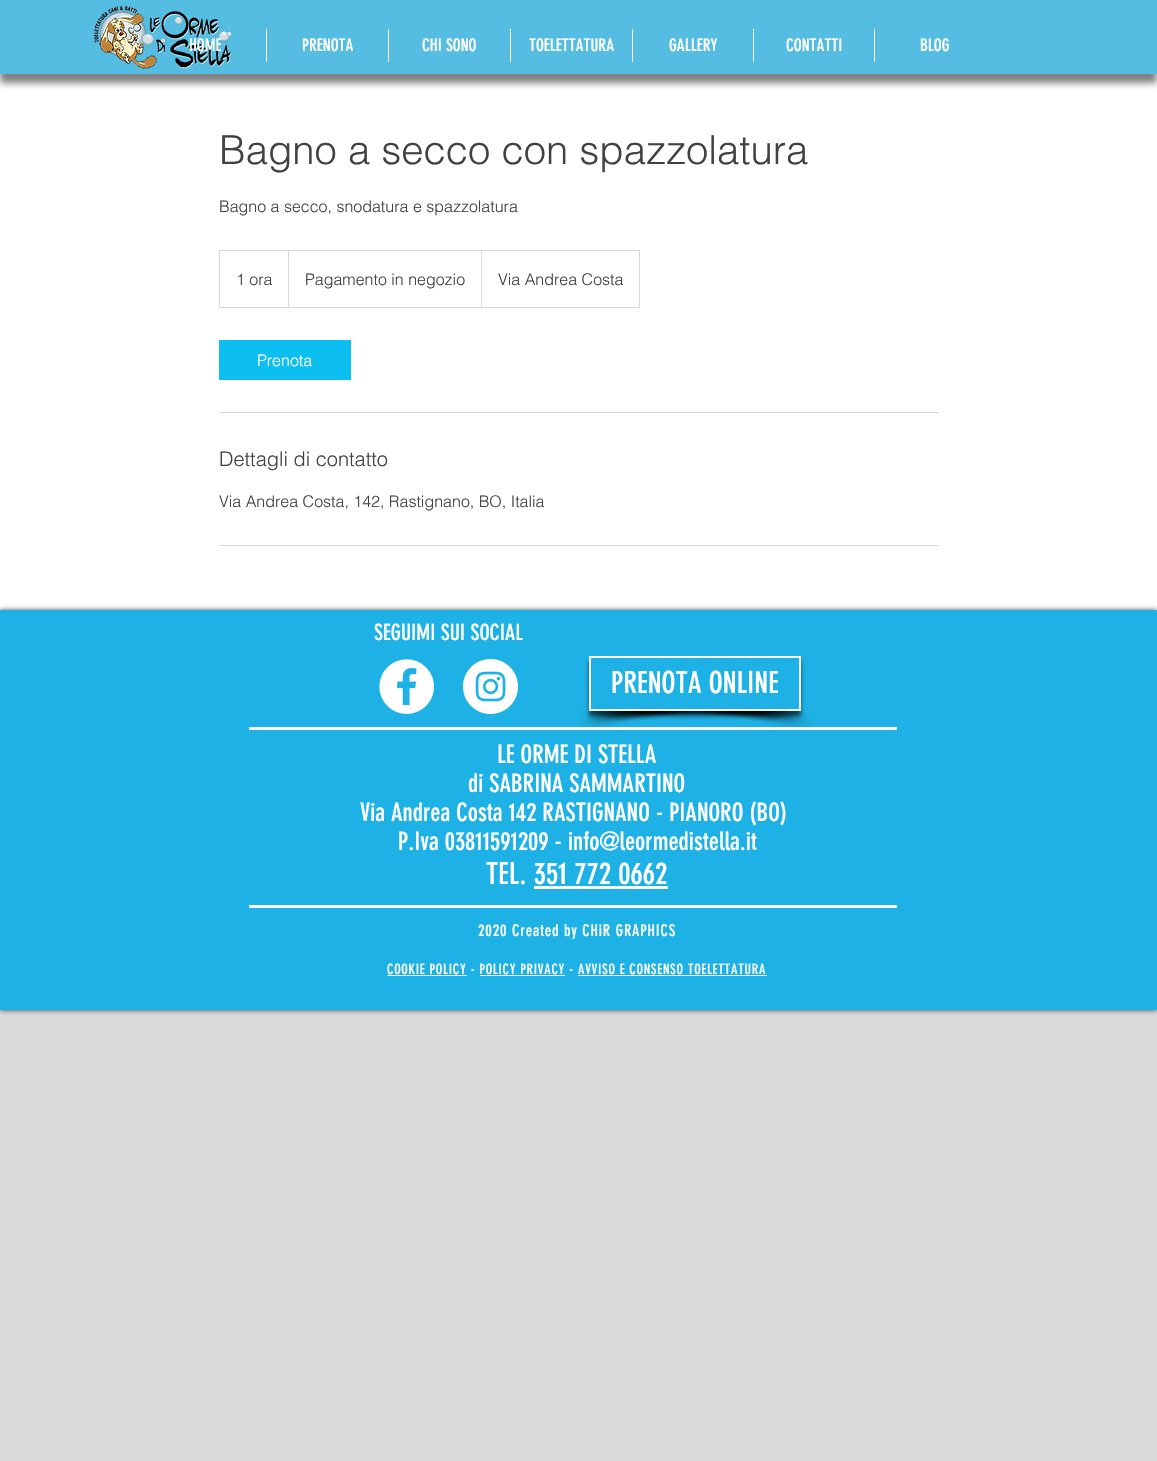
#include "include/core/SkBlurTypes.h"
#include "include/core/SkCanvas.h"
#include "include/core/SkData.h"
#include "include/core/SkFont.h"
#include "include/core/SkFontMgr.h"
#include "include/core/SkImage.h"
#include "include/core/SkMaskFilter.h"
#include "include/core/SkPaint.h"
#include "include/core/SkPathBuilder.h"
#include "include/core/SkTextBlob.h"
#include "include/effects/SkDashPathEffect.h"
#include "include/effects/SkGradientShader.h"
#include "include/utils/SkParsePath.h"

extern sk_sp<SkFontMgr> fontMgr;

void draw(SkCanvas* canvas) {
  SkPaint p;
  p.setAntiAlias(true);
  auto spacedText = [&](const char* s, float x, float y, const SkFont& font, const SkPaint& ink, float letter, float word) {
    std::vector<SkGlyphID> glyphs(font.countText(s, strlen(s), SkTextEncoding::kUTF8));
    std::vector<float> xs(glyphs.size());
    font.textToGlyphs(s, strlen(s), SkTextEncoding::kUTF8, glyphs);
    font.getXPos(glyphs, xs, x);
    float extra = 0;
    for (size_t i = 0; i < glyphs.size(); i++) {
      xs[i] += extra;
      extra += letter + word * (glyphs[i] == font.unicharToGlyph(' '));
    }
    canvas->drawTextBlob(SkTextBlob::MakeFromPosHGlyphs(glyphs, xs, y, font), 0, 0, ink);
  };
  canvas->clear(SkColorSetRGB(218, 218, 218));
  p.setColor(SK_ColorWHITE);
  canvas->drawRect(SkRect::MakeLTRB(0, 74, 1157, 610), p);
  p.setColor(SkColorSetARGB(128, 0, 0, 0));
  p.setMaskFilter(SkMaskFilter::MakeBlur(kNormal_SkBlurStyle, 3.5f));
  canvas->drawRect(SkRect::MakeLTRB(0, 9, 1157, 83), p);
  p.setMaskFilter(nullptr);
  p.setColor(SkColorSetRGB(86, 189, 226));
  canvas->drawRect(SkRect::MakeLTRB(0, 0, 1157, 74), p);
  canvas->drawImageRect(SkImages::DeferredFromEncodedData(SkData::MakeFromFileName("images/1.png")), SkRect::MakeLTRB(94, 6, 232, 69), SkSamplingOptions());
  p.setColor(SK_ColorWHITE);
  canvas->drawRect(SkRect::MakeLTRB(266, 29, 267, 62), p);
  canvas->drawRect(SkRect::MakeLTRB(388, 29, 389, 62), p);
  canvas->drawRect(SkRect::MakeLTRB(510, 29, 511, 62), p);
  canvas->drawRect(SkRect::MakeLTRB(632, 29, 633, 62), p);
  canvas->drawRect(SkRect::MakeLTRB(753, 29, 754, 62), p);
  canvas->drawRect(SkRect::MakeLTRB(874, 29, 875, 62), p);
  p.setStyle(SkPaint::kStroke_Style);
  p.setStrokeWidth(1);
  p.setColor(SkColorSetRGB(217, 217, 217));
  canvas->drawRect(SkRect::MakeLTRB(219.5f, 250.5f, 639.5f, 307.5f), p);
  p.setStyle(SkPaint::kFill_Style);
  canvas->drawPath(SkPathBuilder().moveTo(288, 307).lineTo(288, 250).lineTo(289, 251).lineTo(289, 307).close().detach(), p);
  canvas->drawPath(SkPathBuilder().moveTo(481, 307).lineTo(481, 250).lineTo(482, 251).lineTo(482, 307).close().detach(), p);
  p.setColor(SkColorSetRGB(13, 190, 240));
  canvas->drawRect(SkRect::MakeLTRB(219, 340, 351, 380), p);
  p.setColor(SkColorSetRGB(217, 217, 217));
  canvas->drawRect(SkRect::MakeLTRB(219, 412, 939, 413), p);
  canvas->drawRect(SkRect::MakeLTRB(219, 545, 939, 546), p);
  p.setColor(SkColorSetARGB(179, 0, 0, 0));
  p.setMaskFilter(SkMaskFilter::MakeBlur(kNormal_SkBlurStyle, 2.5f));
  canvas->drawRect(SkRect::MakeLTRB(0, 610, 1157, 1010), p);
  p.setMaskFilter(nullptr);
  p.setColor(SkColorSetRGB(30, 177, 230));
  canvas->drawRect(SkRect::MakeLTRB(0, 610, 1157, 1010), p);
  canvas->drawImageRect(SkImages::DeferredFromEncodedData(SkData::MakeFromFileName("images/2.png")), SkRect::MakeLTRB(379, 659, 434, 714), SkSamplingOptions());
  canvas->drawImageRect(SkImages::DeferredFromEncodedData(SkData::MakeFromFileName("images/3.png")), SkRect::MakeLTRB(463, 659, 518, 714), SkSamplingOptions());
  canvas->drawImageRect(SkImages::DeferredFromEncodedData(SkData::MakeFromFileName("images/4.png")), SkRect::MakeLTRB(580, 711, 734, 727), SkSamplingOptions());
  canvas->drawImageRect(SkImages::DeferredFromEncodedData(SkData::MakeFromFileName("images/5.png")), SkRect::MakeLTRB(675, 711, 810, 727), SkSamplingOptions());
  canvas->save();
  canvas->clipPath(SkPathBuilder(SkPathFillType::kEvenOdd).moveTo(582, 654).lineTo(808, 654).lineTo(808, 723).lineTo(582, 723).close().moveTo(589, 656).lineTo(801, 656).lineTo(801, 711).lineTo(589, 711).close().detach(), true);
  p.setColor(SkColorSetARGB(153, 0, 0, 0));
  p.setMaskFilter(SkMaskFilter::MakeBlur(kNormal_SkBlurStyle, 2));
  canvas->drawRect(SkRect::MakeLTRB(589, 661, 801, 716), p);
  p.setMaskFilter(nullptr);
  canvas->restore();
  p.setStyle(SkPaint::kStroke_Style);
  p.setStrokeWidth(2);
  p.setColor(SK_ColorWHITE);
  canvas->drawRect(SkRect::MakeLTRB(590, 657, 800, 710), p);
  p.setStyle(SkPaint::kFill_Style);
  canvas->drawRect(SkRect::MakeLTRB(249, 727, 897, 730), p);
  canvas->drawRect(SkRect::MakeLTRB(534, 886, 668, 889), p);
  canvas->drawRect(SkRect::MakeLTRB(387, 975, 467, 976), p);
  canvas->drawRect(SkRect::MakeLTRB(480, 975, 565, 976), p);
  canvas->drawRect(SkRect::MakeLTRB(578, 975, 767, 976), p);
  canvas->drawRect(SkRect::MakeLTRB(249, 905, 897, 908), p);
  SkFont font1(fontMgr->matchFamilyStyle("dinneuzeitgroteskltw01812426", SkFontStyle::Normal()), 17);
  font1.setSubpixel(true);
  canvas->drawString("HOME", 189, 51, font1, p);
  canvas->drawString("PRENOTA", 302, 51, font1, p);
  canvas->drawString("CHI SONO", 422, 51, font1, p);
  canvas->drawString("TOELETTATURA", 529, 51, font1, p);
  canvas->drawString("GALLERY", 669, 51, font1, p);
  canvas->drawString("CONTATTI", 786, 51, font1, p);
  canvas->drawString("BLOG", 920, 51, font1, p);
  SkFont font2(fontMgr->matchFamilyStyle("helvetica", SkFontStyle(300, SkFontStyle::kNormal_Width, SkFontStyle::kUpright_Slant)), 40);
  font2.setSubpixel(true);
  p.setColor(SkColorSetRGB(65, 65, 65));
  canvas->drawString("Bagno a secco con spazzolatura", 219, 164, font2, p);
  SkFont font3(fontMgr->matchFamilyStyle("helvetica", SkFontStyle(300, SkFontStyle::kNormal_Width, SkFontStyle::kUpright_Slant)), 16);
  font3.setSubpixel(true);
  canvas->drawString("Bagno a secco, snodatura e spazzolatura", 219, 212, font3, p);
  canvas->drawString("1 ora", 236, 285, font3, p);
  canvas->drawString("Pagamento in negozio", 305, 285, font3, p);
  canvas->drawString("Via Andrea Costa", 498, 285, font3, p);
  p.setColor(SK_ColorWHITE);
  canvas->drawString("Prenota", 257, 366, font3, p);
  SkFont font4(fontMgr->matchFamilyStyle("helvetica", SkFontStyle(300, SkFontStyle::kNormal_Width, SkFontStyle::kUpright_Slant)), 20);
  font4.setSubpixel(true);
  p.setColor(SkColorSetRGB(65, 65, 65));
  canvas->drawString("Dettagli di contatto", 219, 466, font4, p);
  canvas->drawString("Via Andrea Costa, 142, Rastignano, BO, Italia", 219, 507, font3, p);
  SkFont font5(fontMgr->matchFamilyStyle("dinneuzeitgroteskltw01812426", SkFontStyle::Normal()), 22);
  font5.setSubpixel(true);
  p.setColor(SK_ColorWHITE);
  canvas->drawString("SEGUIMI SUI SOCIAL", 374, 640, font5, p);
  SkFont font6(fontMgr->matchFamilyStyle("dinneuzeitgroteskltw01812426", SkFontStyle::Normal()), 30);
  font6.setSubpixel(true);
  canvas->drawString("PRENOTA ONLINE", 611, 693, font6, p);
  SkFont font7(fontMgr->matchFamilyStyle("dinneuzeitgroteskltw01812426", SkFontStyle::Normal()), 25);
  font7.setSubpixel(true);
  canvas->drawString("LE ORME DI STELLA", 497, 763, font7, p);
  canvas->drawString("di SABRINA SAMMARTINO", 468, 792, font7, p);
  canvas->drawString("Via Andrea Costa 142 RASTIGNANO - PIANORO (BO)", 360, 821, font7, p);
  canvas->drawString("P.Iva 03811591209 - info@leormedistella.it", 398, 850, font7, p);
  canvas->drawString("TEL. 351 772 0662", 486, 884, font6, p);
  SkFont font8(fontMgr->matchFamilyStyle("dinneuzeitgroteskltw01812426", SkFontStyle::Normal()), 16);
  font8.setSubpixel(true);
  spacedText("2020 Created by CHiR GRAPHICS", 478, 936, font8, p, 0.8f, 0);
  SkFont font9(fontMgr->matchFamilyStyle("dinneuzeitgroteskltw01812426", SkFontStyle::Normal()), 14);
  font9.setSubpixel(true);
  spacedText("COOKIE POLICY - POLICY PRIVACY - AVVISO E CONSENSO TOELETTATURA", 387, 974, font9, p, 0.7f, 0);
}
